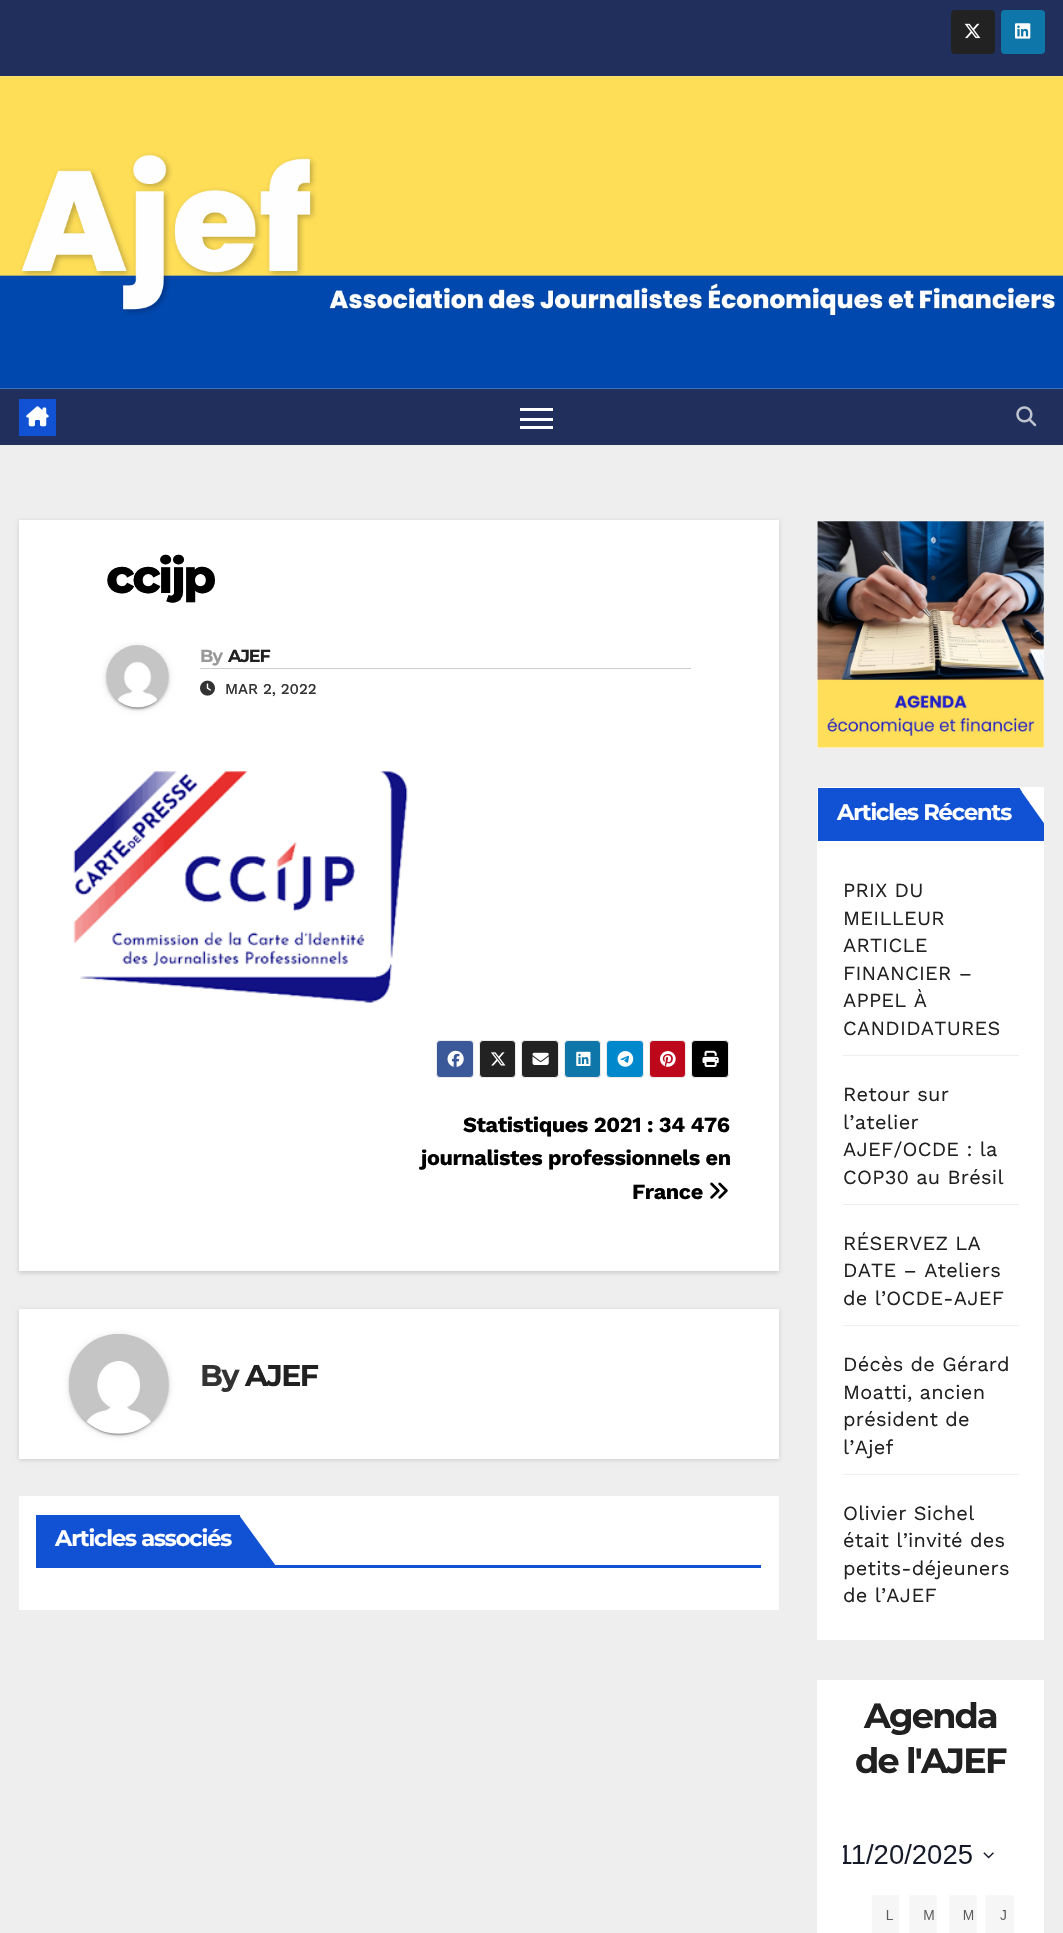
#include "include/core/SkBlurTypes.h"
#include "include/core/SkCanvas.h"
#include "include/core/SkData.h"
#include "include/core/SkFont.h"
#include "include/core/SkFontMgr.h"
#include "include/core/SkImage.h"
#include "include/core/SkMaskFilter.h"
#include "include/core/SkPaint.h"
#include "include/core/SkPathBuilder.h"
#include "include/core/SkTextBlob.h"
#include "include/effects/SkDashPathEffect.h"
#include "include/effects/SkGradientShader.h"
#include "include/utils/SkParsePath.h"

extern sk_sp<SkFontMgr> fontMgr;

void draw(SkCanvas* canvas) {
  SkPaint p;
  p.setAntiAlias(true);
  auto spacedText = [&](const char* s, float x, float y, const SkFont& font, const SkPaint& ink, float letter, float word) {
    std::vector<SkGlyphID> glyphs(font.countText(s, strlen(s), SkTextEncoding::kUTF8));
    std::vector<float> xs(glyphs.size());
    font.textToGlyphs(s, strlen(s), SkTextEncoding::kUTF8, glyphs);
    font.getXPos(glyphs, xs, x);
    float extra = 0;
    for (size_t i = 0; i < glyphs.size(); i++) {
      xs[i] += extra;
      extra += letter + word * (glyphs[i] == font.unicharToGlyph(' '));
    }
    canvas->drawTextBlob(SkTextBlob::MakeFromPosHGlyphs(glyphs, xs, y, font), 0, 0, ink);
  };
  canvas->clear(SkColorSetRGB(238, 238, 238));
  p.setColor(SkColorSetRGB(32, 47, 91));
  canvas->drawRect(SkRect::MakeLTRB(0, 0, 1063, 76), p);
  p.setColor(SkColorSetRGB(34, 34, 34));
  canvas->drawRoundRect(SkRect::MakeLTRB(951, 10, 995, 54), 4, 4, p);
  canvas->drawImageRect(SkImages::DeferredFromEncodedData(SkData::MakeFromFileName("images/1.png")), SkRect::MakeLTRB(964, 23, 981, 39), SkSamplingOptions());
  p.setColor(SkColorSetRGB(14, 118, 168));
  canvas->drawRoundRect(SkRect::MakeLTRB(1001, 10, 1045, 54), 4, 4, p);
  canvas->drawImageRect(SkImages::DeferredFromEncodedData(SkData::MakeFromFileName("images/2.png")), SkRect::MakeLTRB(1015, 23, 1031, 39), SkSamplingOptions());
  canvas->drawImageRect(SkImages::DeferredFromEncodedData(SkData::MakeFromFileName("images/3.png")), SkRect::MakeLTRB(0, 76, 1063, 389), SkSamplingOptions());
  p.setColor(SkColorSetRGB(32, 47, 91));
  canvas->drawRect(SkRect::MakeLTRB(0, 389, 1063, 445), p);
  p.setColor(SkColorSetRGB(17, 81, 211));
  canvas->drawRect(SkRect::MakeLTRB(19, 399, 56, 436), p);
  canvas->drawImageRect(SkImages::DeferredFromEncodedData(SkData::MakeFromFileName("images/4.png")), SkRect::MakeLTRB(26, 406, 49, 427), SkSamplingOptions());
  p.setColor(SK_ColorWHITE);
  canvas->drawRect(SkRect::MakeLTRB(520, 408, 553, 411), p);
  canvas->drawRect(SkRect::MakeLTRB(520, 418, 553, 421), p);
  canvas->drawRect(SkRect::MakeLTRB(520, 426, 553, 429), p);
  canvas->drawImageRect(SkImages::DeferredFromEncodedData(SkData::MakeFromFileName("images/5.png")), SkRect::MakeLTRB(1016, 406, 1037, 427), SkSamplingOptions());
  p.setColor(SkColorSetARGB(38, 0, 0, 0));
  p.setMaskFilter(SkMaskFilter::MakeBlur(kNormal_SkBlurStyle, 2));
  canvas->drawRect(SkRect::MakeLTRB(19, 521, 779, 1273), p);
  p.setMaskFilter(nullptr);
  p.setColor(SK_ColorWHITE);
  canvas->drawRect(SkRect::MakeLTRB(19, 520, 779, 1271), p);
  p.setColor(SkColorSetARGB(31, 0, 0, 0));
  p.setMaskFilter(SkMaskFilter::MakeBlur(kNormal_SkBlurStyle, 3));
  canvas->drawRoundRect(SkRect::MakeLTRB(106, 646, 169, 709), 31.5f, 31.5f, p);
  p.setMaskFilter(nullptr);
  p.setColor(SkColorSetARGB(51, 0, 0, 0));
  p.setMaskFilter(SkMaskFilter::MakeBlur(kNormal_SkBlurStyle, 0.5f));
  canvas->drawRoundRect(SkRect::MakeLTRB(109, 651, 166, 709), 28.5f, 28.5f, p);
  p.setMaskFilter(nullptr);
  p.setColor(SkColorSetARGB(36, 0, 0, 0));
  p.setMaskFilter(SkMaskFilter::MakeBlur(kNormal_SkBlurStyle, 1));
  canvas->drawRoundRect(SkRect::MakeLTRB(106, 648, 169, 710), 31, 31, p);
  p.setMaskFilter(nullptr);
  canvas->drawImageRect(SkImages::DeferredFromEncodedData(SkData::MakeFromFileName("images/6.png")), SkRect::MakeLTRB(106, 645, 169, 708), SkSamplingOptions());
  p.setColor(SkColorSetRGB(204, 204, 204));
  canvas->drawRect(SkRect::MakeLTRB(200, 668, 691, 669), p);
  canvas->drawImageRect(SkImages::DeferredFromEncodedData(SkData::MakeFromFileName("images/7.png")), SkRect::MakeLTRB(200, 680, 215, 696), SkSamplingOptions());
  canvas->drawImageRect(SkImages::DeferredFromEncodedData(SkData::MakeFromFileName("images/8.png")), SkRect::MakeLTRB(73, 771, 408, 1003), SkSamplingOptions());
  p.setColor(SkColorSetRGB(59, 89, 152));
  canvas->drawRoundRect(SkRect::MakeLTRB(436.5f, 1040.5f, 473.5f, 1077.5f), 3.5f, 3.5f, p);
  p.setStyle(SkPaint::kStroke_Style);
  p.setStrokeWidth(1);
  p.setColor(SkColorSetRGB(235, 235, 235));
  canvas->drawRoundRect(SkRect::MakeLTRB(436.5f, 1040.5f, 473.5f, 1077.5f), 3.5f, 3.5f, p);
  canvas->drawImageRect(SkImages::DeferredFromEncodedData(SkData::MakeFromFileName("images/9.png")), SkRect::MakeLTRB(447, 1050, 464, 1067), SkSamplingOptions());
  p.setStyle(SkPaint::kFill_Style);
  p.setColor(SkColorSetRGB(34, 34, 34));
  canvas->drawRoundRect(SkRect::MakeLTRB(479.5f, 1040.5f, 515.5f, 1077.5f), 3.5f, 3.5f, p);
  p.setStyle(SkPaint::kStroke_Style);
  p.setColor(SkColorSetRGB(235, 235, 235));
  canvas->drawRoundRect(SkRect::MakeLTRB(479.5f, 1040.5f, 515.5f, 1077.5f), 3.5f, 3.5f, p);
  canvas->drawImageRect(SkImages::DeferredFromEncodedData(SkData::MakeFromFileName("images/10.png")), SkRect::MakeLTRB(491, 1052, 506, 1066), SkSamplingOptions());
  p.setStyle(SkPaint::kFill_Style);
  p.setColor(SkColorSetRGB(34, 34, 34));
  canvas->drawRoundRect(SkRect::MakeLTRB(521.5f, 1040.5f, 558.5f, 1077.5f), 3.5f, 3.5f, p);
  p.setStyle(SkPaint::kStroke_Style);
  p.setColor(SkColorSetRGB(235, 235, 235));
  canvas->drawRoundRect(SkRect::MakeLTRB(521.5f, 1040.5f, 558.5f, 1077.5f), 3.5f, 3.5f, p);
  canvas->drawImageRect(SkImages::DeferredFromEncodedData(SkData::MakeFromFileName("images/11.png")), SkRect::MakeLTRB(532, 1052, 549, 1065), SkSamplingOptions());
  p.setStyle(SkPaint::kFill_Style);
  p.setColor(SkColorSetRGB(14, 118, 168));
  canvas->drawRoundRect(SkRect::MakeLTRB(564.5f, 1040.5f, 600.5f, 1077.5f), 3.5f, 3.5f, p);
  p.setStyle(SkPaint::kStroke_Style);
  p.setColor(SkColorSetRGB(235, 235, 235));
  canvas->drawRoundRect(SkRect::MakeLTRB(564.5f, 1040.5f, 600.5f, 1077.5f), 3.5f, 3.5f, p);
  canvas->drawImageRect(SkImages::DeferredFromEncodedData(SkData::MakeFromFileName("images/12.png")), SkRect::MakeLTRB(576, 1051, 591, 1066), SkSamplingOptions());
  p.setStyle(SkPaint::kFill_Style);
  p.setColor(SkColorSetRGB(0, 136, 204));
  canvas->drawRoundRect(SkRect::MakeLTRB(606.5f, 1040.5f, 643.5f, 1077.5f), 3.5f, 3.5f, p);
  p.setStyle(SkPaint::kStroke_Style);
  p.setColor(SkColorSetRGB(235, 235, 235));
  canvas->drawRoundRect(SkRect::MakeLTRB(606.5f, 1040.5f, 643.5f, 1077.5f), 3.5f, 3.5f, p);
  canvas->drawImageRect(SkImages::DeferredFromEncodedData(SkData::MakeFromFileName("images/13.png")), SkRect::MakeLTRB(617, 1051, 634, 1067), SkSamplingOptions());
  p.setStyle(SkPaint::kFill_Style);
  p.setColor(SkColorSetRGB(189, 8, 28));
  canvas->drawRoundRect(SkRect::MakeLTRB(649.5f, 1040.5f, 685.5f, 1077.5f), 3.5f, 3.5f, p);
  p.setStyle(SkPaint::kStroke_Style);
  p.setColor(SkColorSetRGB(235, 235, 235));
  canvas->drawRoundRect(SkRect::MakeLTRB(649.5f, 1040.5f, 685.5f, 1077.5f), 3.5f, 3.5f, p);
  canvas->drawImageRect(SkImages::DeferredFromEncodedData(SkData::MakeFromFileName("images/14.png")), SkRect::MakeLTRB(660, 1051, 676, 1067), SkSamplingOptions());
  p.setStyle(SkPaint::kFill_Style);
  p.setColor(SK_ColorBLACK);
  canvas->drawRoundRect(SkRect::MakeLTRB(691.5f, 1040.5f, 728.5f, 1077.5f), 3.5f, 3.5f, p);
  p.setStyle(SkPaint::kStroke_Style);
  p.setColor(SkColorSetRGB(235, 235, 235));
  canvas->drawRoundRect(SkRect::MakeLTRB(691.5f, 1040.5f, 728.5f, 1077.5f), 3.5f, 3.5f, p);
  canvas->drawImageRect(SkImages::DeferredFromEncodedData(SkData::MakeFromFileName("images/15.png")), SkRect::MakeLTRB(702, 1050, 719, 1067), SkSamplingOptions());
  canvas->drawImageRect(SkImages::DeferredFromEncodedData(SkData::MakeFromFileName("images/16.png")), SkRect::MakeLTRB(710, 1182, 728, 1199), SkSamplingOptions());
  p.setStyle(SkPaint::kFill_Style);
  p.setColor(SkColorSetARGB(38, 0, 0, 0));
  p.setMaskFilter(SkMaskFilter::MakeBlur(kNormal_SkBlurStyle, 2));
  canvas->drawRect(SkRect::MakeLTRB(19, 1310, 779, 1460), p);
  p.setMaskFilter(nullptr);
  p.setColor(SK_ColorWHITE);
  canvas->drawRect(SkRect::MakeLTRB(19, 1309, 779, 1459), p);
  p.setColor(SkColorSetARGB(31, 0, 0, 0));
  p.setMaskFilter(SkMaskFilter::MakeBlur(kNormal_SkBlurStyle, 3));
  canvas->drawRoundRect(SkRect::MakeLTRB(69, 1335, 169, 1435), 50, 50, p);
  p.setMaskFilter(nullptr);
  p.setColor(SkColorSetARGB(51, 0, 0, 0));
  p.setMaskFilter(SkMaskFilter::MakeBlur(kNormal_SkBlurStyle, 0.5f));
  canvas->drawRoundRect(SkRect::MakeLTRB(71, 1340, 166, 1435), 47.5f, 47.5f, p);
  p.setMaskFilter(nullptr);
  p.setColor(SkColorSetARGB(36, 0, 0, 0));
  p.setMaskFilter(SkMaskFilter::MakeBlur(kNormal_SkBlurStyle, 1));
  canvas->drawRoundRect(SkRect::MakeLTRB(69, 1336, 169, 1436), 50, 50, p);
  p.setMaskFilter(nullptr);
  canvas->drawImageRect(SkImages::DeferredFromEncodedData(SkData::MakeFromFileName("images/17.png")), SkRect::MakeLTRB(69, 1334, 169, 1434), SkSamplingOptions());
  p.setColor(SK_ColorWHITE);
  canvas->drawRect(SkRect::MakeLTRB(19, 1496, 779, 1610), p);
  p.setColor(SkColorSetRGB(17, 81, 211));
  canvas->drawRect(SkRect::MakeLTRB(36, 1565, 761, 1568), p);
  canvas->drawRect(SkRect::MakeLTRB(36, 1515, 240, 1565), p);
  canvas->drawPath(SkPathBuilder().moveTo(239, 1515).lineTo(239, 1566).lineTo(276, 1566).close().detach(), p);
  p.setColor(SK_ColorWHITE);
  canvas->drawRect(SkRect::MakeLTRB(817, 521, 1044, 748), p);
  canvas->drawImageRect(SkImages::DeferredFromEncodedData(SkData::MakeFromFileName("images/18.png")), SkRect::MakeLTRB(817, 521, 1044, 748), SkSamplingOptions());
  canvas->drawRect(SkRect::MakeLTRB(817, 787, 1044, 1640), p);
  p.setColor(SkColorSetRGB(17, 81, 211));
  canvas->drawRect(SkRect::MakeLTRB(818, 838, 1044, 841), p);
  canvas->drawRect(SkRect::MakeLTRB(818, 788, 1020, 838), p);
  canvas->save();
  canvas->clipRect(SkRect::MakeLTRB(818, 788, 1044, 1640));
  canvas->drawPath(SkPathBuilder().moveTo(1019, 788).lineTo(1019, 840).lineTo(1056, 840).close().detach(), p);
  canvas->restore();
  canvas->drawPath(SkPathBuilder().moveTo(1020, 789).lineTo(1019, 788).lineTo(1019, 840).lineTo(1022, 836).lineTo(1022, 792).close().detach(), p);
  p.setColor(SkColorSetRGB(238, 238, 238));
  canvas->drawRect(SkRect::MakeLTRB(843, 1055, 1019, 1056), p);
  canvas->drawRect(SkRect::MakeLTRB(843, 1204, 1019, 1205), p);
  canvas->drawRect(SkRect::MakeLTRB(843, 1325, 1019, 1326), p);
  canvas->drawRect(SkRect::MakeLTRB(843, 1474, 1019, 1475), p);
  p.setColor(SK_ColorWHITE);
  canvas->drawRect(SkRect::MakeLTRB(817, 1680, 1044, 1933), p);
  canvas->drawImageRect(SkImages::DeferredFromEncodedData(SkData::MakeFromFileName("images/19.png")), SkRect::MakeLTRB(843, 1844, 1014, 1933), SkSamplingOptions());
  SkFont font1(fontMgr->matchFamilyStyle("Montserrat", SkFontStyle(800, SkFontStyle::kNormal_Width, SkFontStyle::kUpright_Slant)), 47.5f);
  font1.setSubpixel(true);
  p.setColor(SK_ColorBLACK);
  spacedText("ccijp", 106, 593, font1, p, -2.5f, 0);
  SkFont font2(fontMgr->matchFamilyStyle("Montserrat", SkFontStyle::Bold()), 17.5f);
  font2.setSubpixel(true);
  p.setColor(SkColorSetRGB(153, 153, 153));
  spacedText("By", 200, 662, font2, p, -1, 0);
  p.setColor(SkColorSetRGB(33, 33, 33));
  spacedText("AJEF", 228, 662, font2, p, -1, 0);
  SkFont font3(fontMgr->matchFamilyStyle("Work Sans", SkFontStyle(500, SkFontStyle::kNormal_Width, SkFontStyle::kUpright_Slant)), 15);
  font3.setSubpixel(true);
  p.setColor(SkColorSetRGB(51, 51, 51));
  canvas->drawString("MAR 2, 2022", 225, 694, font3, p);
  SkFont font4(fontMgr->matchFamilyStyle("Work Sans", SkFontStyle::Bold()), 21.6f);
  font4.setSubpixel(true);
  p.setColor(SK_ColorBLACK);
  spacedText("Statistiques 2021 : 34 476", 463, 1132, font4, p, -0.4f, 0);
  spacedText("journalistes professionnels en", 421, 1165, font4, p, -0.4f, 0);
  spacedText("France", 632, 1199, font4, p, -0.4f, 0);
  SkFont font5(fontMgr->matchFamilyStyle("Montserrat", SkFontStyle::Bold()), 30);
  font5.setSubpixel(true);
  p.setColor(SkColorSetRGB(51, 51, 51));
  spacedText("By", 200, 1386, font5, p, -1.5f, 0);
  p.setColor(SkColorSetRGB(33, 33, 33));
  spacedText("AJEF", 245, 1386, font5, p, -1.5f, 0);
  SkFont font6(fontMgr->matchFamilyStyle("Montserrat", SkFontStyle::Bold()), 22.5f);
  font6.setSubpixel(true);
  p.setColor(SK_ColorWHITE);
  spacedText("Articles associés", 55, 1546, font6, p, -1.1f, 0);
  spacedText("Articles Récents", 837, 820, font6, p, -1.1f, 0);
  SkFont font7(fontMgr->matchFamilyStyle("Work Sans", SkFontStyle::Normal()), 20);
  font7.setSubpixel(true);
  p.setColor(SkColorSetRGB(33, 33, 33));
  spacedText("PRIX DU", 843, 897, font7, p, 0.25f, 0);
  spacedText("MEILLEUR", 843, 925, font7, p, 0.25f, 0);
  spacedText("ARTICLE", 843, 952, font7, p, 0.25f, 0);
  spacedText("FINANCIER –", 843, 980, font7, p, 0.25f, 0);
  spacedText("APPEL À", 843, 1007, font7, p, 0.25f, 0);
  spacedText("CANDIDATURES", 843, 1035, font7, p, 0.25f, 0);
  spacedText("Retour sur", 843, 1101, font7, p, 0.25f, 0);
  spacedText("l’atelier", 843, 1129, font7, p, 0.25f, 0);
  spacedText("AJEF/OCDE : la", 843, 1156, font7, p, 0.25f, 0);
  spacedText("COP30 au Brésil", 843, 1184, font7, p, 0.25f, 0);
  spacedText("RÉSERVEZ LA", 843, 1250, font7, p, 0.25f, 0);
  spacedText("DATE – Ateliers", 843, 1277, font7, p, 0.25f, 0);
  spacedText("de l’OCDE-AJEF", 843, 1305, font7, p, 0.25f, 0);
  spacedText("Décès de Gérard", 843, 1371, font7, p, 0.25f, 0);
  spacedText("Moatti, ancien", 843, 1399, font7, p, 0.25f, 0);
  spacedText("président de", 843, 1426, font7, p, 0.25f, 0);
  spacedText("l’Ajef", 843, 1454, font7, p, 0.25f, 0);
  spacedText("Olivier Sichel", 843, 1520, font7, p, 0.25f, 0);
  spacedText("était l’invité des", 843, 1547, font7, p, 0.25f, 0);
  spacedText("petits-déjeuners", 843, 1575, font7, p, 0.25f, 0);
  spacedText("de l’AJEF", 843, 1602, font7, p, 0.25f, 0);
  SkFont font8(fontMgr->matchFamilyStyle("Montserrat", SkFontStyle::Bold()), 35);
  font8.setSubpixel(true);
  spacedText("Agenda", 864, 1728, font8, p, -1.75f, 0);
  spacedText("de l'AJEF", 855, 1773, font8, p, -1.75f, 0);
}
